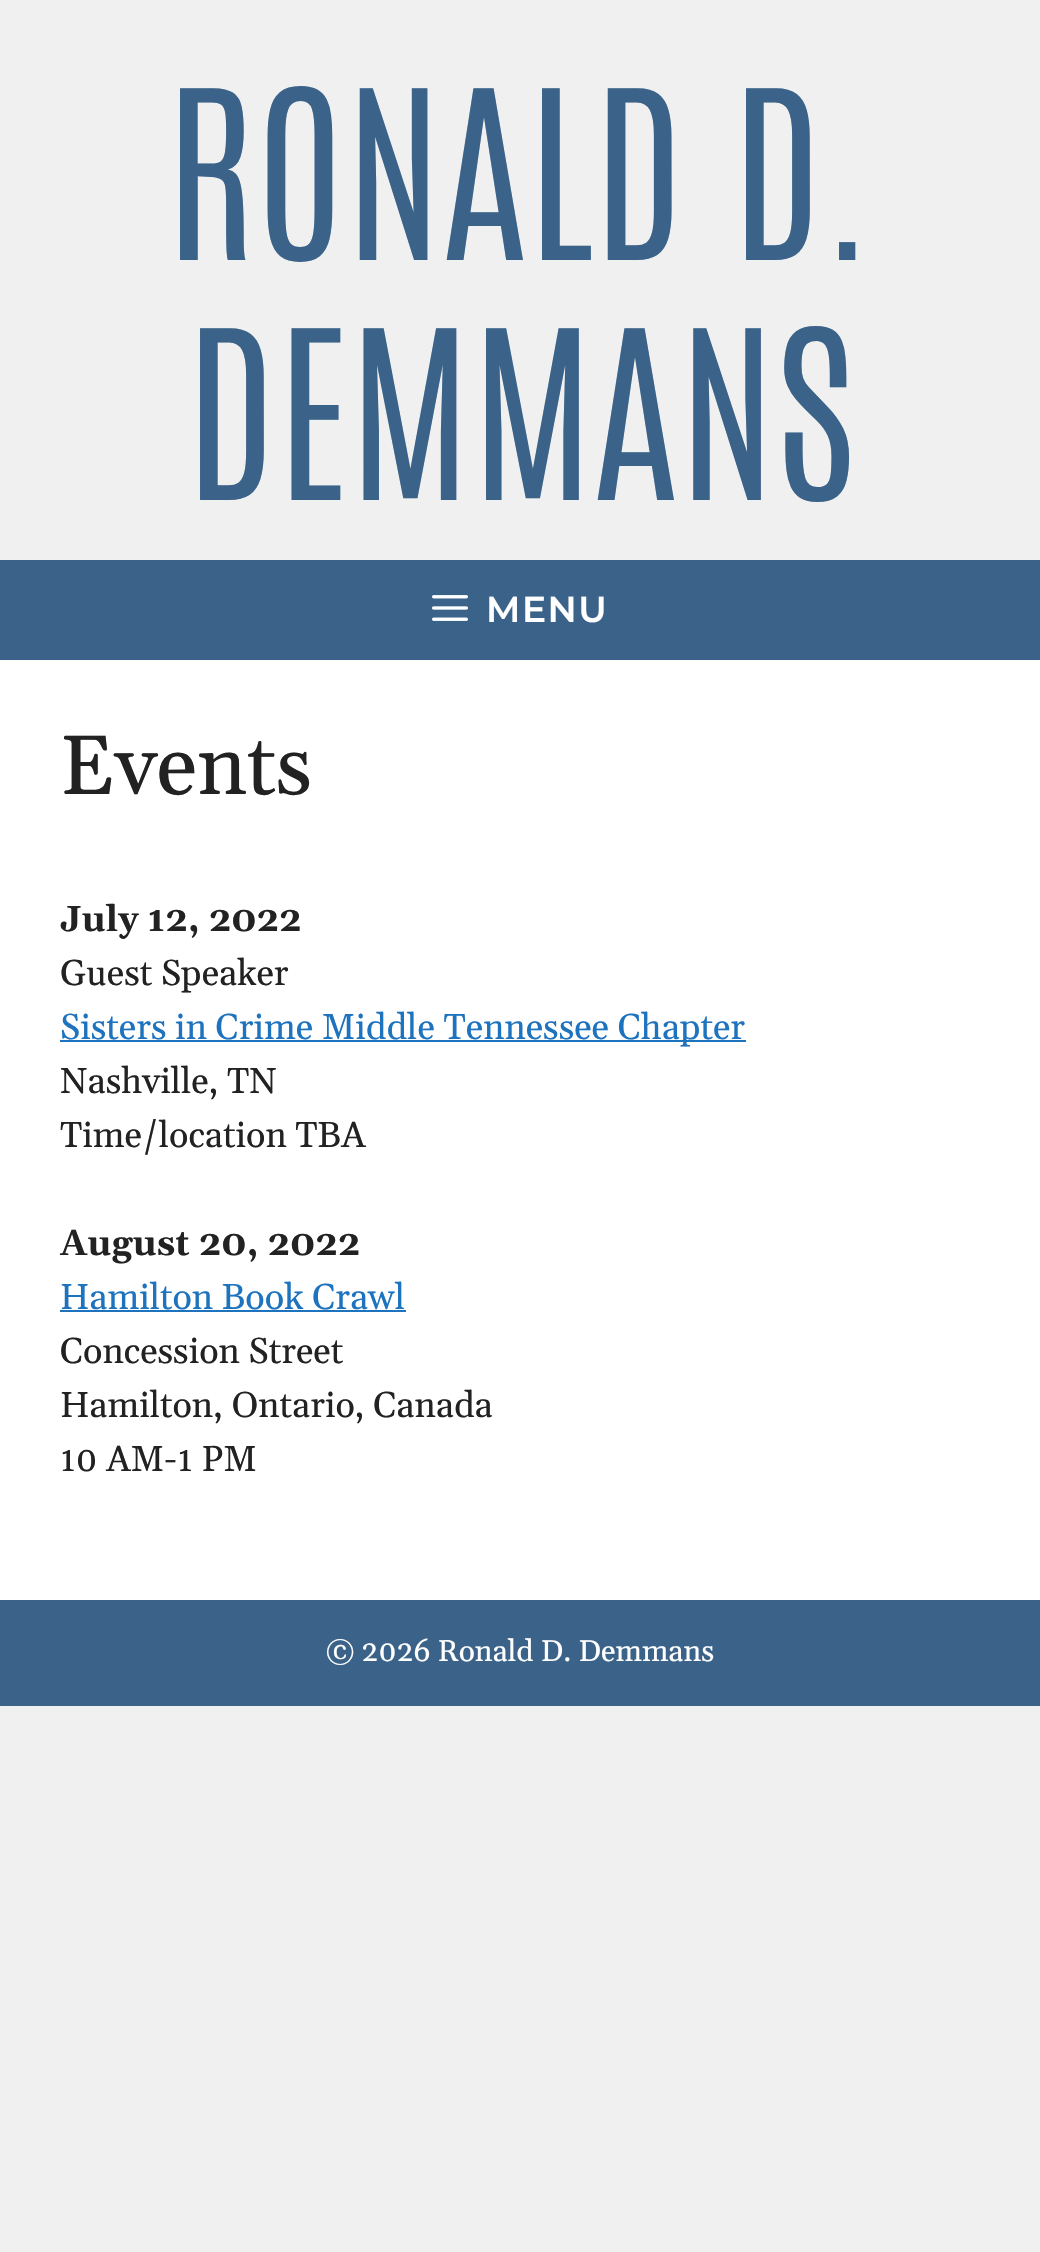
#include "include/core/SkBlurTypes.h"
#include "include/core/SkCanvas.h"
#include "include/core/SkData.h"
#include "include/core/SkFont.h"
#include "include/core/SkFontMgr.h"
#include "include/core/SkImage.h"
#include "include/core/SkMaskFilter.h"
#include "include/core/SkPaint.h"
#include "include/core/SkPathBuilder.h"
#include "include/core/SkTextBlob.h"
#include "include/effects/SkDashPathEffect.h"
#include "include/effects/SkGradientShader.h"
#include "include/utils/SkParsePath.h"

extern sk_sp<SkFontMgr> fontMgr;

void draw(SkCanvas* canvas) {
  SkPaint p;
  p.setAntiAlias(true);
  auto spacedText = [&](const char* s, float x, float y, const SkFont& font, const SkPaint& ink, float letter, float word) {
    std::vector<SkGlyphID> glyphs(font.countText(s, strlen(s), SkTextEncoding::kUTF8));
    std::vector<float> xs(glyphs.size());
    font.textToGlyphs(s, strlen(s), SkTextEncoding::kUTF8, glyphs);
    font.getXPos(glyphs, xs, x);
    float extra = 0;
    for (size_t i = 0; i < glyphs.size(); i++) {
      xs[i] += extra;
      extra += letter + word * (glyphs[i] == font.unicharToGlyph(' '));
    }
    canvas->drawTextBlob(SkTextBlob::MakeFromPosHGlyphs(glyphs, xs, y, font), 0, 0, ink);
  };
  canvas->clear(SkColorSetRGB(240, 240, 240));
  p.setColor(SkColorSetRGB(59, 98, 137));
  canvas->drawRect(SkRect::MakeLTRB(0, 560, 1040, 660), p);
  canvas->drawImageRect(SkImages::DeferredFromEncodedData(SkData::MakeFromFileName("images/1.png")), SkRect::MakeLTRB(432, 595, 468, 621), SkSamplingOptions());
  p.setColor(SK_ColorWHITE);
  canvas->drawRect(SkRect::MakeLTRB(0, 660, 1040, 1600), p);
  p.setColor(SkColorSetRGB(30, 115, 190));
  canvas->drawRect(SkRect::MakeLTRB(60, 1040, 746, 1042), p);
  canvas->drawRect(SkRect::MakeLTRB(60, 1310, 406, 1312), p);
  p.setColor(SkColorSetRGB(59, 98, 137));
  canvas->drawRect(SkRect::MakeLTRB(0, 1600, 1040, 1706), p);
  SkFont font1(fontMgr->matchFamilyStyle("Antonio", SkFontStyle(300, SkFontStyle::kNormal_Width, SkFontStyle::kUpright_Slant)), 200);
  font1.setSubpixel(true);
  canvas->drawString("RONALD D.", 165, 260, font1, p);
  canvas->drawString("DEMMANS", 185, 500, font1, p);
  SkFont font2(fontMgr->matchFamilyStyle("Montserrat", SkFontStyle(600, SkFontStyle::kNormal_Width, SkFontStyle::kUpright_Slant)), 36);
  font2.setSubpixel(true);
  p.setColor(SK_ColorWHITE);
  spacedText("MENU", 486, 622, font2, p, 1.5f, 0);
  SkFont font3(fontMgr->matchFamilyStyle("Gelasio", SkFontStyle::Normal()), 84);
  font3.setSubpixel(true);
  p.setColor(SkColorSetRGB(34, 34, 34));
  canvas->drawString("Events", 60, 794, font3, p);
  SkFont font4(fontMgr->matchFamilyStyle("Gelasio", SkFontStyle::Bold()), 36);
  font4.setSubpixel(true);
  canvas->drawString("July 12, 2022", 60, 931, font4, p);
  SkFont font5(fontMgr->matchFamilyStyle("Gelasio", SkFontStyle::Normal()), 36);
  font5.setSubpixel(true);
  canvas->drawString("Guest Speaker", 60, 985, font5, p);
  p.setColor(SkColorSetRGB(30, 115, 190));
  canvas->drawString("Sisters in Crime Middle Tennessee Chapter", 60, 1039, font5, p);
  p.setColor(SkColorSetRGB(34, 34, 34));
  canvas->drawString("Nashville, TN", 60, 1093, font5, p);
  canvas->drawString("Time/location TBA", 60, 1147, font5, p);
  canvas->drawString("August 20, 2022", 60, 1255, font4, p);
  p.setColor(SkColorSetRGB(30, 115, 190));
  canvas->drawString("Hamilton Book Crawl", 60, 1309, font5, p);
  p.setColor(SkColorSetRGB(34, 34, 34));
  canvas->drawString("Concession Street", 60, 1363, font5, p);
  canvas->drawString("Hamilton, Ontario, Canada", 60, 1417, font5, p);
  canvas->drawString("10 AM-1 PM", 60, 1471, font5, p);
  SkFont font6(fontMgr->matchFamilyStyle("Gelasio", SkFontStyle::Normal()), 30);
  font6.setSubpixel(true);
  p.setColor(SK_ColorWHITE);
  canvas->drawString("© 2026 Ronald D. Demmans", 326, 1661, font6, p);
}
